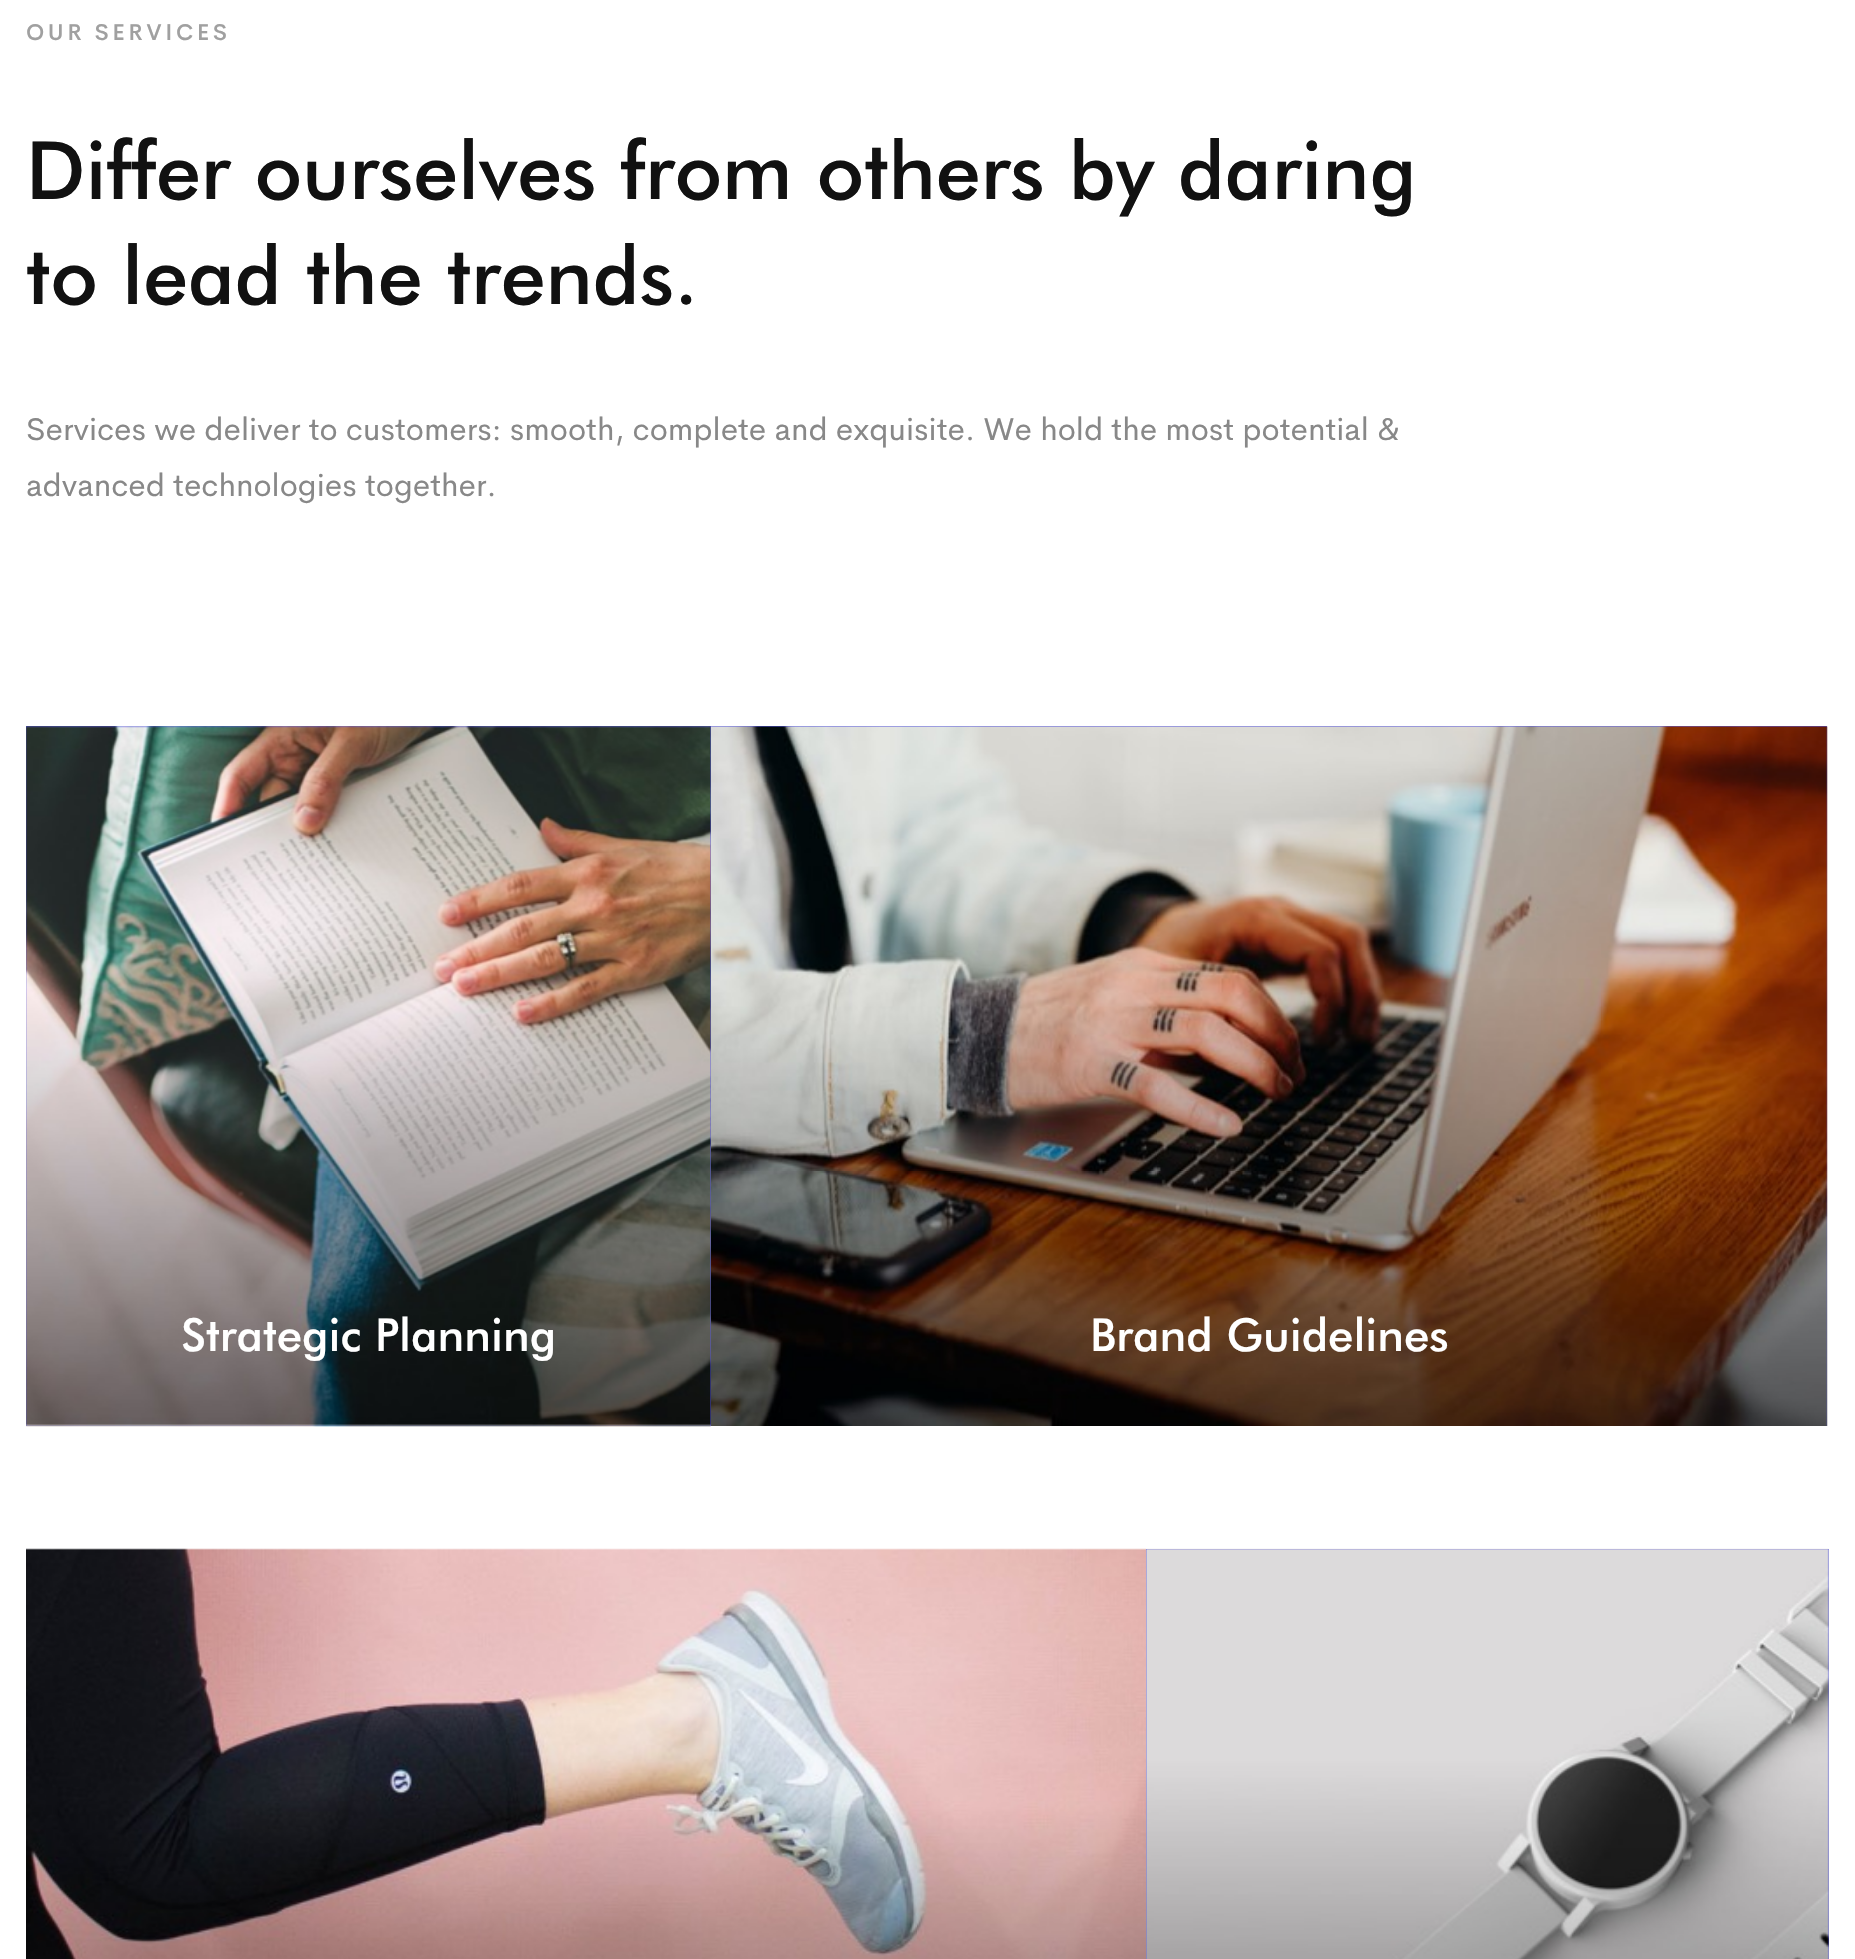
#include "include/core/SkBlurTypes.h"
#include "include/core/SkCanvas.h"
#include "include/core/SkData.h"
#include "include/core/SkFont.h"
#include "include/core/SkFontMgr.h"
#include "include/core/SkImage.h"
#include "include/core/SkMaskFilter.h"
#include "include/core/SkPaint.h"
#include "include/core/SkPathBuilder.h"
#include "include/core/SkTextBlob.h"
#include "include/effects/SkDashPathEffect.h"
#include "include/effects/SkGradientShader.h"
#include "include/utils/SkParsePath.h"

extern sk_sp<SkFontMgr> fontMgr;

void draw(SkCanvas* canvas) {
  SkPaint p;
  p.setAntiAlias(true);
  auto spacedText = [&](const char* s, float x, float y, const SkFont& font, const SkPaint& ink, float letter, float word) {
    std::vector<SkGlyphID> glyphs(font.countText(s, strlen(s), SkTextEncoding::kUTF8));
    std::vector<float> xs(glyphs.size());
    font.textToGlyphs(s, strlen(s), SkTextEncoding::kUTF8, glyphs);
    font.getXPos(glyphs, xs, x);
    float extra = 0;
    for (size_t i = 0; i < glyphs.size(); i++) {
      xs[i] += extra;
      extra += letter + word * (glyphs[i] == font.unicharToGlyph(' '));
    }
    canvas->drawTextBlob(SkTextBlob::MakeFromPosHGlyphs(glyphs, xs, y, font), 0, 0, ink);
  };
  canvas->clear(SK_ColorWHITE);
  p.setColor(SkColorSetRGB(87, 88, 224));
  canvas->drawRect(SkRect::MakeLTRB(26, 726, 1827, 1426), p);
  canvas->drawImageRect(SkImages::DeferredFromEncodedData(SkData::MakeFromFileName("images/1.png")), SkRect::MakeLTRB(26, 726, 711, 1427), SkSamplingOptions());
  canvas->drawImageRect(SkImages::DeferredFromEncodedData(SkData::MakeFromFileName("images/2.png")), SkRect::MakeLTRB(711, 726, 1828, 1426), SkSamplingOptions());
  canvas->drawImageRect(SkImages::DeferredFromEncodedData(SkData::MakeFromFileName("images/3.png")), SkRect::MakeLTRB(26, 1548, 1146, 1959), SkSamplingOptions());
  canvas->drawRect(SkRect::MakeLTRB(1146, 1549, 1829, 1959), p);
  canvas->drawImageRect(SkImages::DeferredFromEncodedData(SkData::MakeFromFileName("images/4.png")), SkRect::MakeLTRB(1146, 1548, 1829, 1959), SkSamplingOptions());
  SkFont font1(fontMgr->matchFamilyStyle("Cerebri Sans", SkFontStyle(500, SkFontStyle::kNormal_Width, SkFontStyle::kUpright_Slant)), 22.75f);
  font1.setSubpixel(true);
  p.setColor(SkColorSetRGB(160, 160, 160));
  spacedText("OUR SERVICES", 26, 40, font1, p, 3.5f, 0);
  SkFont font2(fontMgr->matchFamilyStyle("Futura", SkFontStyle(500, SkFontStyle::kNormal_Width, SkFontStyle::kUpright_Slant)), 80.5f);
  font2.setSubpixel(true);
  p.setColor(SkColorSetRGB(17, 17, 17));
  canvas->drawString("Differ ourselves from others by daring", 26, 199, font2, p);
  canvas->drawString("to lead the trends.", 26, 304, font2, p);
  SkFont font3(fontMgr->matchFamilyStyle("Cerebri Sans", SkFontStyle::Normal()), 31.5f);
  font3.setSubpixel(true);
  p.setColor(SkColorSetRGB(136, 136, 136));
  canvas->drawString("Services we deliver to customers: smooth, complete and exquisite. We hold the most potential &", 26, 440, font3, p);
  canvas->drawString("advanced technologies together.", 26, 496, font3, p);
  SkFont font4(fontMgr->matchFamilyStyle("Futura", SkFontStyle(500, SkFontStyle::kNormal_Width, SkFontStyle::kUpright_Slant)), 45.5f);
  font4.setSubpixel(true);
  p.setColor(SK_ColorWHITE);
  canvas->drawString("Strategic Planning", 181, 1351, font4, p);
  canvas->drawString("Brand Guidelines", 1090, 1351, font4, p);
}
